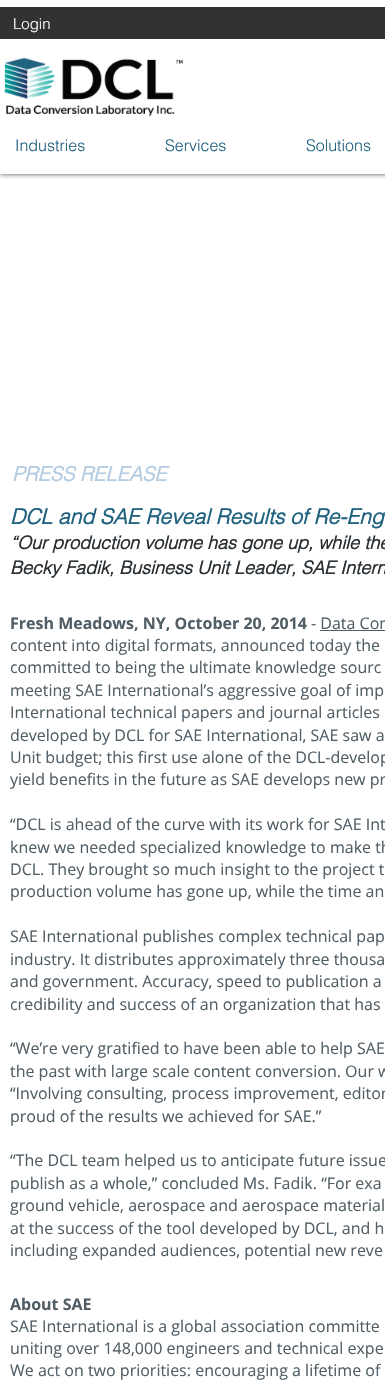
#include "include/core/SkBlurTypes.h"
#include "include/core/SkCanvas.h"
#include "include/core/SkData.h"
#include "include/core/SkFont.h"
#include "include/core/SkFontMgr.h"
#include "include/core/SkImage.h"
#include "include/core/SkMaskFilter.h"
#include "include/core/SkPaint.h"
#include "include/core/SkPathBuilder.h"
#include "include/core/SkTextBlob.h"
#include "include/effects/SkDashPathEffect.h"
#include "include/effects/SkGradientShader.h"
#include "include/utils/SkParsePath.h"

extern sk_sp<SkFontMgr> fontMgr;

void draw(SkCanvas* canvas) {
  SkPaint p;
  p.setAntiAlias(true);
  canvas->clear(SK_ColorWHITE);
  canvas->save();
  canvas->clipRect(SkRect::MakeLTRB(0, 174, 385, 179));
  p.setColor(SkColorSetARGB(179, 0, 0, 0));
  p.setMaskFilter(SkMaskFilter::MakeBlur(kNormal_SkBlurStyle, 2.5f));
  canvas->drawRect(SkRect::MakeLTRB(0, 0, 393, 174), p);
  p.setMaskFilter(nullptr);
  canvas->restore();
  p.setColor(SkColorSetRGB(50, 50, 50));
  canvas->drawRect(SkRect::MakeLTRB(0, 7, 385, 39), p);
  canvas->drawImageRect(SkImages::DeferredFromEncodedData(SkData::MakeFromFileName("images/1.png")), SkRect::MakeLTRB(4, 57, 184, 117), SkSamplingOptions());
  p.setColor(SkColorSetRGB(81, 94, 101));
  canvas->drawRect(SkRect::MakeLTRB(320, 630, 385, 631), p);
  SkFont font1(fontMgr->matchFamilyStyle("helvetica", SkFontStyle(300, SkFontStyle::kNormal_Width, SkFontStyle::kUpright_Slant)), 15);
  font1.setSubpixel(true);
  p.setColor(SK_ColorWHITE);
  canvas->drawString("Login", 13, 29, font1, p);
  SkFont font2(fontMgr->matchFamilyStyle("helvetica", SkFontStyle(300, SkFontStyle::kNormal_Width, SkFontStyle::kUpright_Slant)), 16);
  font2.setSubpixel(true);
  p.setColor(SkColorSetRGB(32, 98, 127));
  canvas->drawString("Industries", 15, 151, font2, p);
  canvas->drawString("Services", 165, 151, font2, p);
  canvas->drawString("Solutions", 306, 151, font2, p);
  SkFont font3(fontMgr->matchFamilyStyle("helvetica", SkFontStyle::BoldItalic()), 20);
  font3.setSubpixel(true);
  p.setColor(SkColorSetRGB(182, 205, 225));
  canvas->drawString("PRESS RELEASE", 12, 481, font3, p);
  SkFont font4(fontMgr->matchFamilyStyle("helvetica", SkFontStyle::BoldItalic()), 21);
  font4.setSubpixel(true);
  p.setColor(SkColorSetRGB(32, 98, 127));
  canvas->drawString("DCL and SAE Reveal Results of Re-Eng", 10, 524, font4, p);
  SkFont font5(fontMgr->matchFamilyStyle("helvetica", SkFontStyle::BoldItalic()), 18);
  font5.setSubpixel(true);
  p.setColor(SkColorSetRGB(41, 47, 51));
  canvas->drawString("“Our production volume has gone up, while the", 10, 549, font5, p);
  canvas->drawString("Becky Fadik, Business Unit Leader, SAE Intern", 10, 574, font5, p);
  SkFont font6(fontMgr->matchFamilyStyle("Open Sans", SkFontStyle::Bold()), 16);
  font6.setSubpixel(true);
  p.setColor(SkColorSetRGB(81, 94, 101));
  canvas->drawString("Fresh Meadows, NY, October 20, 2014", 10, 629, font6, p);
  SkFont font7(fontMgr->matchFamilyStyle("Open Sans", SkFontStyle::Normal()), 16);
  font7.setSubpixel(true);
  canvas->drawString("- Data Con", 311, 629, font7, p);
  canvas->drawString("content into digital formats, announced today the", 10, 651, font7, p);
  canvas->drawString("committed to being the ultimate knowledge sourc", 10, 673, font7, p);
  canvas->drawString("meeting SAE International’s aggressive goal of imp", 10, 696, font7, p);
  canvas->drawString("International technical papers and journal articles", 10, 718, font7, p);
  canvas->drawString("developed by DCL for SAE International, SAE saw a", 10, 741, font7, p);
  canvas->drawString("Unit budget; this first use alone of the DCL-develop", 10, 763, font7, p);
  canvas->drawString("yield benefits in the future as SAE develops new pr", 10, 785, font7, p);
  canvas->drawString("“DCL is ahead of the curve with its work for SAE Int", 10, 830, font7, p);
  canvas->drawString("knew we needed specialized knowledge to make th", 10, 853, font7, p);
  canvas->drawString("DCL. They brought so much insight to the project t", 10, 875, font7, p);
  canvas->drawString("production volume has gone up, while the time an", 10, 897, font7, p);
  canvas->drawString("SAE International publishes complex technical pap", 10, 942, font7, p);
  canvas->drawString("industry. It distributes approximately three thousa", 10, 965, font7, p);
  canvas->drawString("and government. Accuracy, speed to publication a", 10, 987, font7, p);
  canvas->drawString("credibility and success of an organization that has", 10, 1010, font7, p);
  canvas->drawString("“We’re very gratified to have been able to help SAE", 10, 1054, font7, p);
  canvas->drawString("the past with large scale content conversion. Our w", 10, 1077, font7, p);
  canvas->drawString("“Involving consulting, process improvement, editor", 10, 1099, font7, p);
  canvas->drawString("proud of the results we achieved for SAE.”", 10, 1122, font7, p);
  canvas->drawString("“The DCL team helped us to anticipate future issue", 10, 1166, font7, p);
  canvas->drawString("publish as a whole,” concluded Ms. Fadik. “For exa", 10, 1189, font7, p);
  canvas->drawString("ground vehicle, aerospace and aerospace material", 10, 1211, font7, p);
  canvas->drawString("at the success of the tool developed by DCL, and h", 10, 1234, font7, p);
  canvas->drawString("including expanded audiences, potential new reve", 10, 1256, font7, p);
  canvas->drawString("About SAE", 10, 1310, font6, p);
  canvas->drawString("SAE International is a global association committe", 10, 1332, font7, p);
  canvas->drawString("uniting over 148,000 engineers and technical expe", 10, 1354, font7, p);
  canvas->drawString("We act on two priorities: encouraging a lifetime of", 10, 1376, font7, p);
}
